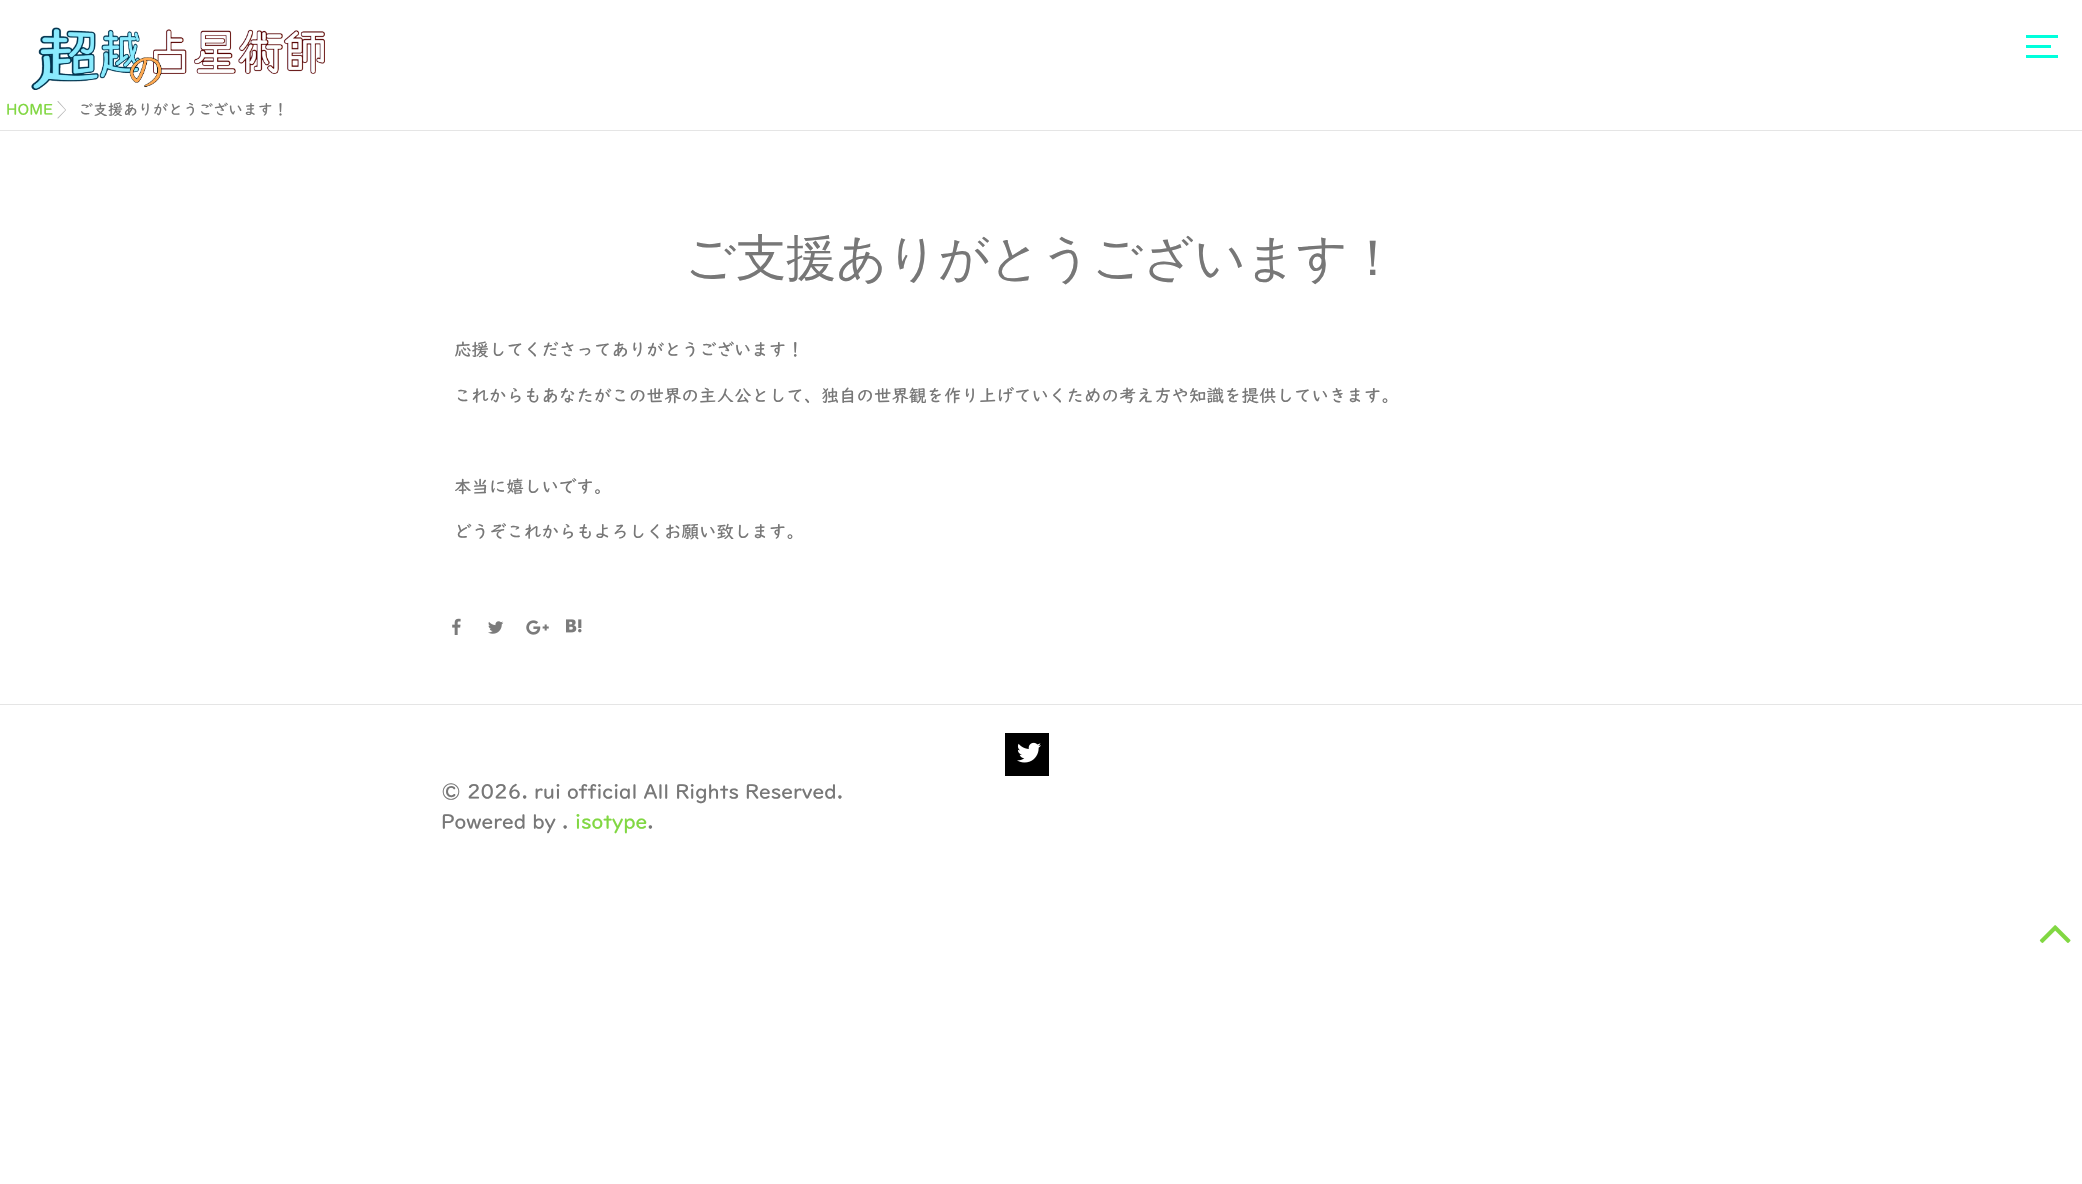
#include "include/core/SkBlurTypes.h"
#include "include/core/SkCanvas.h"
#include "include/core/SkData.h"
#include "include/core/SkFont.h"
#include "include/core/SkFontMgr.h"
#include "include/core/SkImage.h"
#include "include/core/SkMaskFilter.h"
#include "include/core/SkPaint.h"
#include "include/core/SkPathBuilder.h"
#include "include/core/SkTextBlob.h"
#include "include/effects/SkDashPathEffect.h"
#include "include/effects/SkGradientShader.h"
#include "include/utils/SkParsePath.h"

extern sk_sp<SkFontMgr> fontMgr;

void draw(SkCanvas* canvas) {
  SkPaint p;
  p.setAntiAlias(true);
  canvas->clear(SK_ColorWHITE);
  canvas->drawImageRect(SkImages::DeferredFromEncodedData(SkData::MakeFromFileName("images/1.png")), SkRect::MakeLTRB(31, 27, 325, 90), SkSamplingOptions());
  p.setColor(SkColorSetRGB(0, 255, 220));
  canvas->drawRect(SkRect::MakeLTRB(2026, 35, 2058, 38), p);
  canvas->drawRect(SkRect::MakeLTRB(2026, 45, 2051, 48), p);
  canvas->drawRect(SkRect::MakeLTRB(2026, 55, 2058, 58), p);
  p.setColor(SkColorSetRGB(229, 229, 229));
  canvas->drawRect(SkRect::MakeLTRB(0, 130, 2082, 131), p);
  p.setColor(SkColorSetRGB(188, 188, 188));
  canvas->drawPath(SkPathBuilder().moveTo(57.5f, 101.5f).lineTo(65.5f, 110).lineTo(57.5f, 118).lineTo(58, 118.5f).lineTo(66, 110).lineTo(58, 101).close().detach(), p);
  canvas->drawPath(SkPathBuilder().moveTo(57.5f, 101.5f).lineTo(65.5f, 110).lineTo(57.5f, 118).lineTo(58, 118.5f).lineTo(66, 110).lineTo(58, 101).close().detach(), p);
  canvas->drawImageRect(SkImages::DeferredFromEncodedData(SkData::MakeFromFileName("images/2.png")), SkRect::MakeLTRB(452, 618, 461, 635), SkSamplingOptions());
  canvas->drawImageRect(SkImages::DeferredFromEncodedData(SkData::MakeFromFileName("images/3.png")), SkRect::MakeLTRB(488, 621, 504, 634), SkSamplingOptions());
  canvas->drawImageRect(SkImages::DeferredFromEncodedData(SkData::MakeFromFileName("images/4.png")), SkRect::MakeLTRB(526, 620, 549, 635), SkSamplingOptions());
  canvas->drawImageRect(SkImages::DeferredFromEncodedData(SkData::MakeFromFileName("images/5.png")), SkRect::MakeLTRB(566, 619, 582, 633), SkSamplingOptions());
  p.setColor(SkColorSetRGB(229, 229, 229));
  canvas->drawRect(SkRect::MakeLTRB(0, 704, 2082, 705), p);
  p.setColor(SK_ColorBLACK);
  canvas->drawRect(SkRect::MakeLTRB(1005, 733, 1049, 776), p);
  canvas->drawImageRect(SkImages::DeferredFromEncodedData(SkData::MakeFromFileName("images/6.png")), SkRect::MakeLTRB(1017, 742, 1041, 763), SkSamplingOptions());
  canvas->drawImageRect(SkImages::DeferredFromEncodedData(SkData::MakeFromFileName("images/7.png")), SkRect::MakeLTRB(2039, 925, 2071, 943), SkSamplingOptions());
  SkFont font1(fontMgr->matchFamilyStyle("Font", SkFontStyle(500, SkFontStyle::kNormal_Width, SkFontStyle::kUpright_Slant)), 15);
  font1.setSubpixel(true);
  p.setColor(SkColorSetRGB(129, 215, 66));
  canvas->drawString("HOME", 6, 115, font1, p);
  p.setColor(SkColorSetRGB(119, 119, 119));
  canvas->drawString("ご支援ありがとうございます！", 78, 115, font1, p);
  SkFont font2(fontMgr->matchFamilyStyle("WenQuanYi Zen Hei", SkFontStyle(500, SkFontStyle::kNormal_Width, SkFontStyle::kUpright_Slant)), 50);
  font2.setSubpixel(true);
  canvas->drawString("ご支援ありがとうございます！", 685, 275, font2, p);
  SkFont font3(fontMgr->matchFamilyStyle("Font", SkFontStyle(500, SkFontStyle::kNormal_Width, SkFontStyle::kUpright_Slant)), 17.5f);
  font3.setSubpixel(true);
  canvas->drawString("応援してくださってありがとうございます！", 454, 356, font3, p);
  canvas->drawString("これからもあなたがこの世界の主人公として、独自の世界観を作り上げていくための考え方や知識を提供していきます。", 454, 402, font3, p);
  canvas->drawString("本当に嬉しいです。", 454, 493, font3, p);
  canvas->drawString("どうぞこれからもよろしくお願い致します。", 454, 538, font3, p);
  SkFont font4(fontMgr->matchFamilyStyle("Font", SkFontStyle(500, SkFontStyle::kNormal_Width, SkFontStyle::kUpright_Slant)), 20);
  font4.setSubpixel(true);
  canvas->drawString("© 2026. rui official All Rights Reserved.", 441, 799, font4, p);
  canvas->drawString("Powered by .", 441, 829, font4, p);
  p.setColor(SkColorSetRGB(129, 215, 66));
  canvas->drawString("isotype", 575, 829, font4, p);
  p.setColor(SkColorSetRGB(119, 119, 119));
  canvas->drawString(".", 647, 829, font4, p);
}
